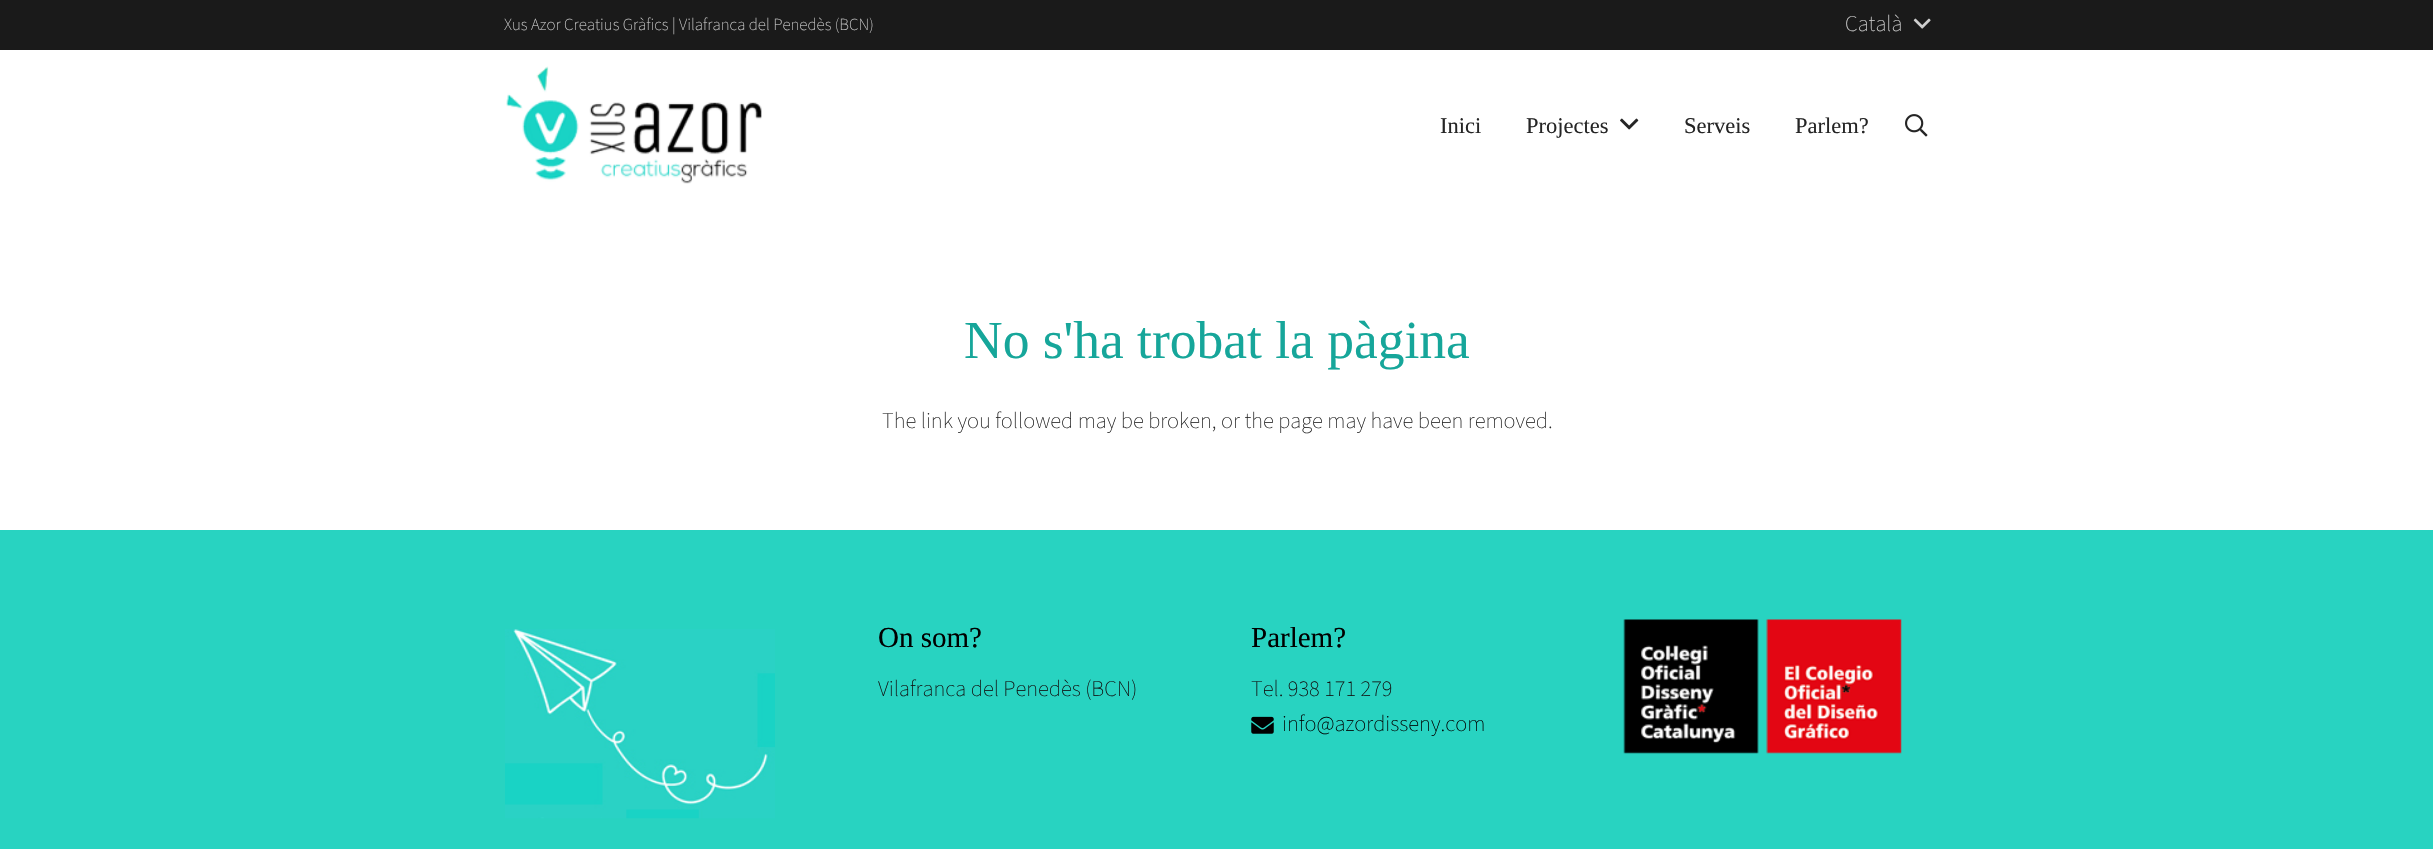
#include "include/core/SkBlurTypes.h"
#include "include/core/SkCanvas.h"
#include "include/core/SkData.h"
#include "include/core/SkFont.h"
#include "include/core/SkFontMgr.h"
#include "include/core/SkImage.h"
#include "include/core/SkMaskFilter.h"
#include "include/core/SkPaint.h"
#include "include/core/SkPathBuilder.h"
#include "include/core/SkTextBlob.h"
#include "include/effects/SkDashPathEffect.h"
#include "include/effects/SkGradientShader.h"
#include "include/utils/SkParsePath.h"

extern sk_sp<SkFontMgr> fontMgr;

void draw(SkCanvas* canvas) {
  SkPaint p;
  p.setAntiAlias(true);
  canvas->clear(SK_ColorWHITE);
  p.setColor(SkColorSetRGB(26, 26, 26));
  canvas->drawRect(SkRect::MakeLTRB(0, 0, 2433, 50), p);
  canvas->drawImageRect(SkImages::DeferredFromEncodedData(SkData::MakeFromFileName("images/1.png")), SkRect::MakeLTRB(1913, 18, 1931, 29), SkSamplingOptions());
  canvas->drawImageRect(SkImages::DeferredFromEncodedData(SkData::MakeFromFileName("images/2.png")), SkRect::MakeLTRB(506, 66, 762, 184), SkSamplingOptions());
  canvas->drawImageRect(SkImages::DeferredFromEncodedData(SkData::MakeFromFileName("images/3.png")), SkRect::MakeLTRB(1620, 118, 1639, 130), SkSamplingOptions());
  canvas->drawImageRect(SkImages::DeferredFromEncodedData(SkData::MakeFromFileName("images/4.png")), SkRect::MakeLTRB(1905, 114, 1928, 137), SkSamplingOptions());
  p.setColor(SkColorSetRGB(40, 211, 193));
  canvas->drawRect(SkRect::MakeLTRB(0, 530, 2433, 849), p);
  canvas->drawImageRect(SkImages::DeferredFromEncodedData(SkData::MakeFromFileName("images/5.png")), SkRect::MakeLTRB(505, 629, 775, 819), SkSamplingOptions());
  canvas->drawImageRect(SkImages::DeferredFromEncodedData(SkData::MakeFromFileName("images/6.png")), SkRect::MakeLTRB(1251, 716, 1274, 734), SkSamplingOptions());
  canvas->drawImageRect(SkImages::DeferredFromEncodedData(SkData::MakeFromFileName("images/7.png")), SkRect::MakeLTRB(1623, 619, 1902, 754), SkSamplingOptions());
  SkFont font1(fontMgr->matchFamilyStyle("Source Sans 3", SkFontStyle(200, SkFontStyle::kNormal_Width, SkFontStyle::kUpright_Slant)), 16.9f);
  font1.setSubpixel(true);
  p.setColor(SkColorSetRGB(206, 206, 206));
  canvas->drawString("Xus Azor Creatius Gràfics | Vilafranca del Penedès (BCN)", 504, 30, font1, p);
  SkFont font2(fontMgr->matchFamilyStyle("Source Sans 3", SkFontStyle(200, SkFontStyle::kNormal_Width, SkFontStyle::kUpright_Slant)), 22.5f);
  font2.setSubpixel(true);
  canvas->drawString("Català", 1845, 31, font2, p);
  SkFont font3(fontMgr->matchFamilyStyle("Liberation Serif", SkFontStyle::Normal()), 22.5f);
  font3.setSubpixel(true);
  p.setColor(SkColorSetRGB(37, 37, 37));
  canvas->drawString("Inici", 1440, 133, font3, p);
  canvas->drawString("Projectes", 1526, 133, font3, p);
  canvas->drawString("Serveis", 1684, 133, font3, p);
  canvas->drawString("Parlem?", 1795, 133, font3, p);
  SkFont font4(fontMgr->matchFamilyStyle("Liberation Serif", SkFontStyle::Normal()), 53.5f);
  font4.setSubpixel(true);
  p.setColor(SkColorSetRGB(22, 166, 154));
  canvas->drawString("No s'ha trobat la pàgina", 964, 358, font4, p);
  p.setColor(SkColorSetRGB(37, 37, 37));
  canvas->drawString("The link you followed may be broken, or the page may have been removed.", 882, 428, font2, p);
  SkFont font5(fontMgr->matchFamilyStyle("Liberation Serif", SkFontStyle::Normal()), 29);
  font5.setSubpixel(true);
  p.setColor(SK_ColorBLACK);
  canvas->drawString("On som?", 878, 647, font5, p);
  p.setColor(SkColorSetRGB(17, 17, 17));
  canvas->drawString("Vilafranca del Penedès (BCN)", 878, 696, font2, p);
  p.setColor(SK_ColorBLACK);
  canvas->drawString("Parlem?", 1251, 647, font5, p);
  p.setColor(SkColorSetRGB(17, 17, 17));
  canvas->drawString("Tel. 938 171 279", 1251, 696, font2, p);
  p.setColor(SK_ColorBLACK);
  canvas->drawString("info@azordisseny.com", 1282, 731, font2, p);
}
